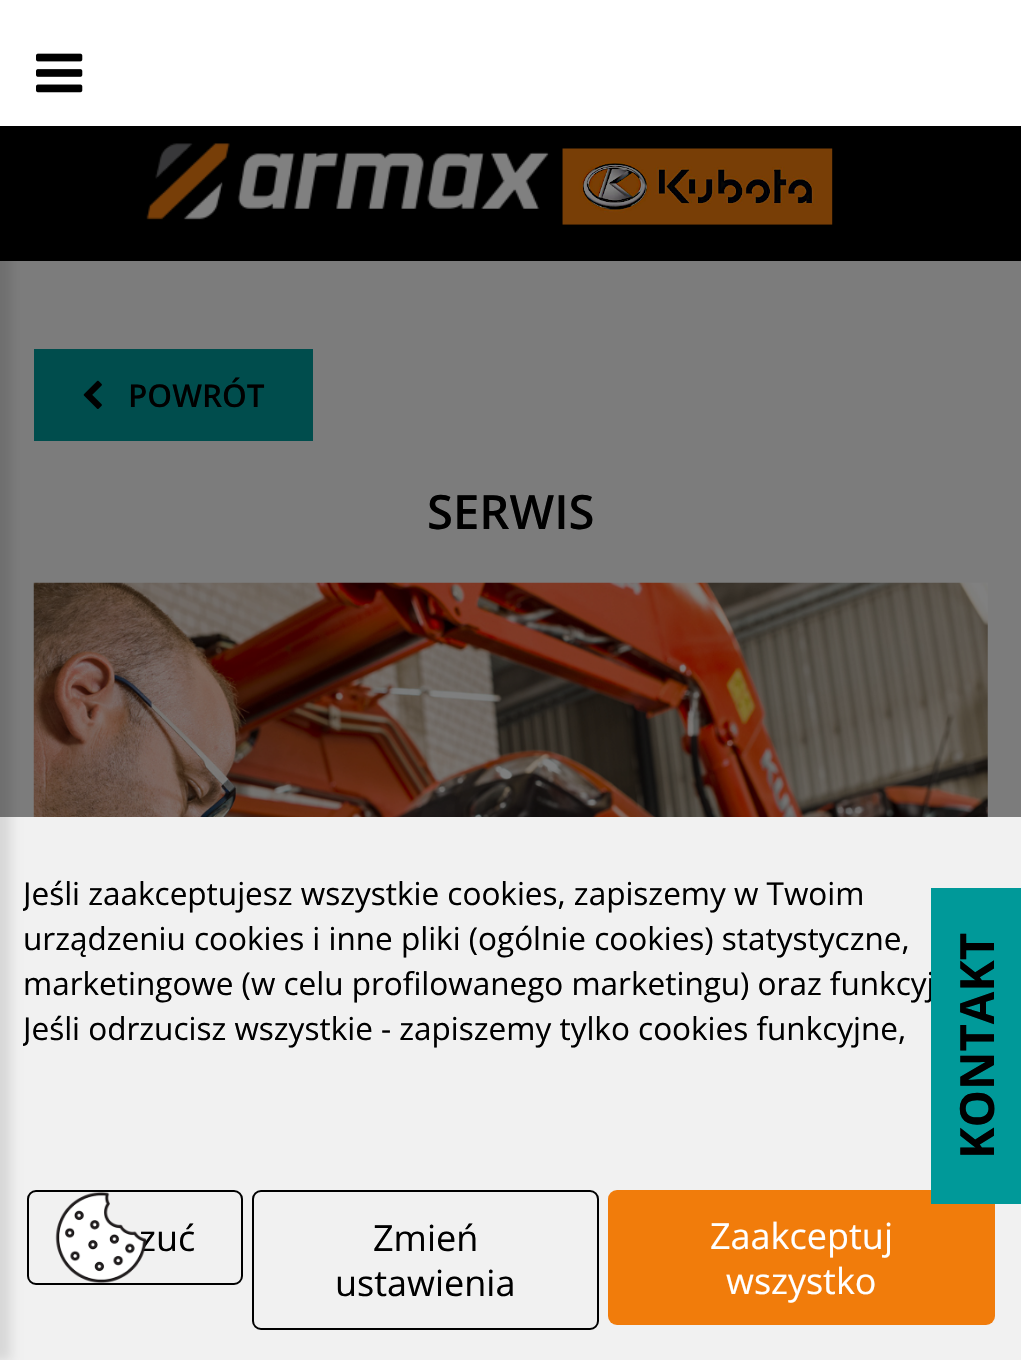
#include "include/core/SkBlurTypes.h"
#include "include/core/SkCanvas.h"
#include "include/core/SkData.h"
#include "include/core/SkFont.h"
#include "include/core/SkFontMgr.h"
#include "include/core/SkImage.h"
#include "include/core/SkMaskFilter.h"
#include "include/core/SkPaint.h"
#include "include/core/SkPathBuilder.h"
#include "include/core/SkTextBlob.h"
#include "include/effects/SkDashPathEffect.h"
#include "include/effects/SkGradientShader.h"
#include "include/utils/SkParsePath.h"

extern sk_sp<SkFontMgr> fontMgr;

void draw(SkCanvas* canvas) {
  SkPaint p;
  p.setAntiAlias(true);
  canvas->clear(SK_ColorBLACK);
  p.setColor(SkColorSetRGB(124, 124, 124));
  canvas->drawRect(SkRect::MakeLTRB(0, 261, 1021, 817), p);
  p.setColor(SkColorSetRGB(241, 241, 241));
  canvas->drawRect(SkRect::MakeLTRB(0, 817, 1021, 1360), p);
  p.setStyle(SkPaint::kStroke_Style);
  p.setStrokeWidth(2);
  p.setColor(SK_ColorBLACK);
  canvas->drawRoundRect(SkRect::MakeLTRB(28, 1191, 242, 1284), 8, 8, p);
  p.setStyle(SkPaint::kFill_Style);
  p.setColor(SkColorSetARGB(26, 0, 0, 0));
  p.setMaskFilter(SkMaskFilter::MakeBlur(kNormal_SkBlurStyle, 5.5f));
  canvas->drawRect(SkRect::MakeLTRB(-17, 126, 11, 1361), p);
  p.setMaskFilter(nullptr);
  p.setColor(SK_ColorWHITE);
  canvas->drawRect(SkRect::MakeLTRB(0, 0, 1021, 126), p);
  canvas->drawImageRect(SkImages::DeferredFromEncodedData(SkData::MakeFromFileName("images/1.png")), SkRect::MakeLTRB(36, 53, 83, 93), SkSamplingOptions());
  canvas->drawImageRect(SkImages::DeferredFromEncodedData(SkData::MakeFromFileName("images/2.png")), SkRect::MakeLTRB(146, 143, 550, 220), SkSamplingOptions());
  canvas->drawImageRect(SkImages::DeferredFromEncodedData(SkData::MakeFromFileName("images/3.png")), SkRect::MakeLTRB(562, 148, 833, 225), SkSamplingOptions());
  p.setColor(SkColorSetRGB(0, 77, 77));
  canvas->drawRect(SkRect::MakeLTRB(34, 349, 313, 441), p);
  canvas->drawImageRect(SkImages::DeferredFromEncodedData(SkData::MakeFromFileName("images/4.png")), SkRect::MakeLTRB(83, 380, 102, 409), SkSamplingOptions());
  canvas->drawImageRect(SkImages::DeferredFromEncodedData(SkData::MakeFromFileName("images/5.png")), SkRect::MakeLTRB(33, 582, 988, 817), SkSamplingOptions());
  p.setStyle(SkPaint::kStroke_Style);
  p.setColor(SK_ColorBLACK);
  canvas->drawRoundRect(SkRect::MakeLTRB(253, 1191, 598, 1329), 8, 8, p);
  p.setStyle(SkPaint::kFill_Style);
  p.setColor(SkColorSetRGB(241, 124, 11));
  canvas->drawRoundRect(SkRect::MakeLTRB(608, 1190, 995, 1325), 9, 9, p);
  SkFont font1(fontMgr->matchFamilyStyle("Open Sans", SkFontStyle(600, SkFontStyle::kNormal_Width, SkFontStyle::kUpright_Slant)), 31.5f);
  font1.setSubpixel(true);
  p.setColor(SK_ColorBLACK);
  canvas->drawString("POWRÓT", 128, 407, font1, p);
  SkFont font2(fontMgr->matchFamilyStyle("Open Sans", SkFontStyle(600, SkFontStyle::kNormal_Width, SkFontStyle::kUpright_Slant)), 47.25f);
  font2.setSubpixel(true);
  canvas->drawString("SERWIS", 427, 529, font2, p);
  canvas->save();
  canvas->clipRect(SkRect::MakeLTRB(23, 871, 999, 1051));
  SkFont font3(fontMgr->matchFamilyStyle("Open Sans", SkFontStyle::Normal()), 31.5f);
  font3.setSubpixel(true);
  canvas->drawString("Jeśli zaakceptujesz wszystkie cookies, zapiszemy w Twoim", 23, 905, font3, p);
  canvas->restore();
  canvas->drawString("urządzeniu cookies i inne pliki (ogólnie cookies) statystyczne,", 23, 950, font3, p);
  canvas->drawString("marketingowe (w celu profilowanego marketingu) oraz funkcyj", 23, 995, font3, p);
  canvas->save();
  canvas->clipRect(SkRect::MakeLTRB(23, 871, 999, 1051));
  canvas->drawString("Jeśli odrzucisz wszystkie - zapiszemy tylko cookies funkcyjne,", 23, 1040, font3, p);
  canvas->restore();
  SkFont font4(fontMgr->matchFamilyStyle("Open Sans", SkFontStyle::Normal()), 36);
  font4.setSubpixel(true);
  canvas->drawString("zuć", 139, 1251, font4, p);
  canvas->drawString("Zmień", 373, 1251, font4, p);
  canvas->drawString("ustawienia", 335, 1296, font4, p);
  p.setColor(SK_ColorWHITE);
  canvas->drawString("Zaakceptuj", 710, 1249, font4, p);
  canvas->drawString("wszystko", 726, 1294, font4, p);
  p.setColor(SkColorSetRGB(0, 153, 153));
  canvas->drawRect(SkRect::MakeLTRB(931, 888, 1021, 1204), p);
  SkFont font5(fontMgr->matchFamilyStyle("Open Sans", SkFontStyle::Bold()), 47.25f);
  font5.setSubpixel(true);
  p.setColor(SK_ColorBLACK);
  canvas->save();
  canvas->rotate(-90, 994, 1159);
  canvas->drawString("KONTAKT", 994, 1159, font5, p);
  canvas->restore();
  canvas->drawImageRect(SkImages::DeferredFromEncodedData(SkData::MakeFromFileName("images/6.png")), SkRect::MakeLTRB(55, 1192, 147, 1283), SkSamplingOptions());
}
